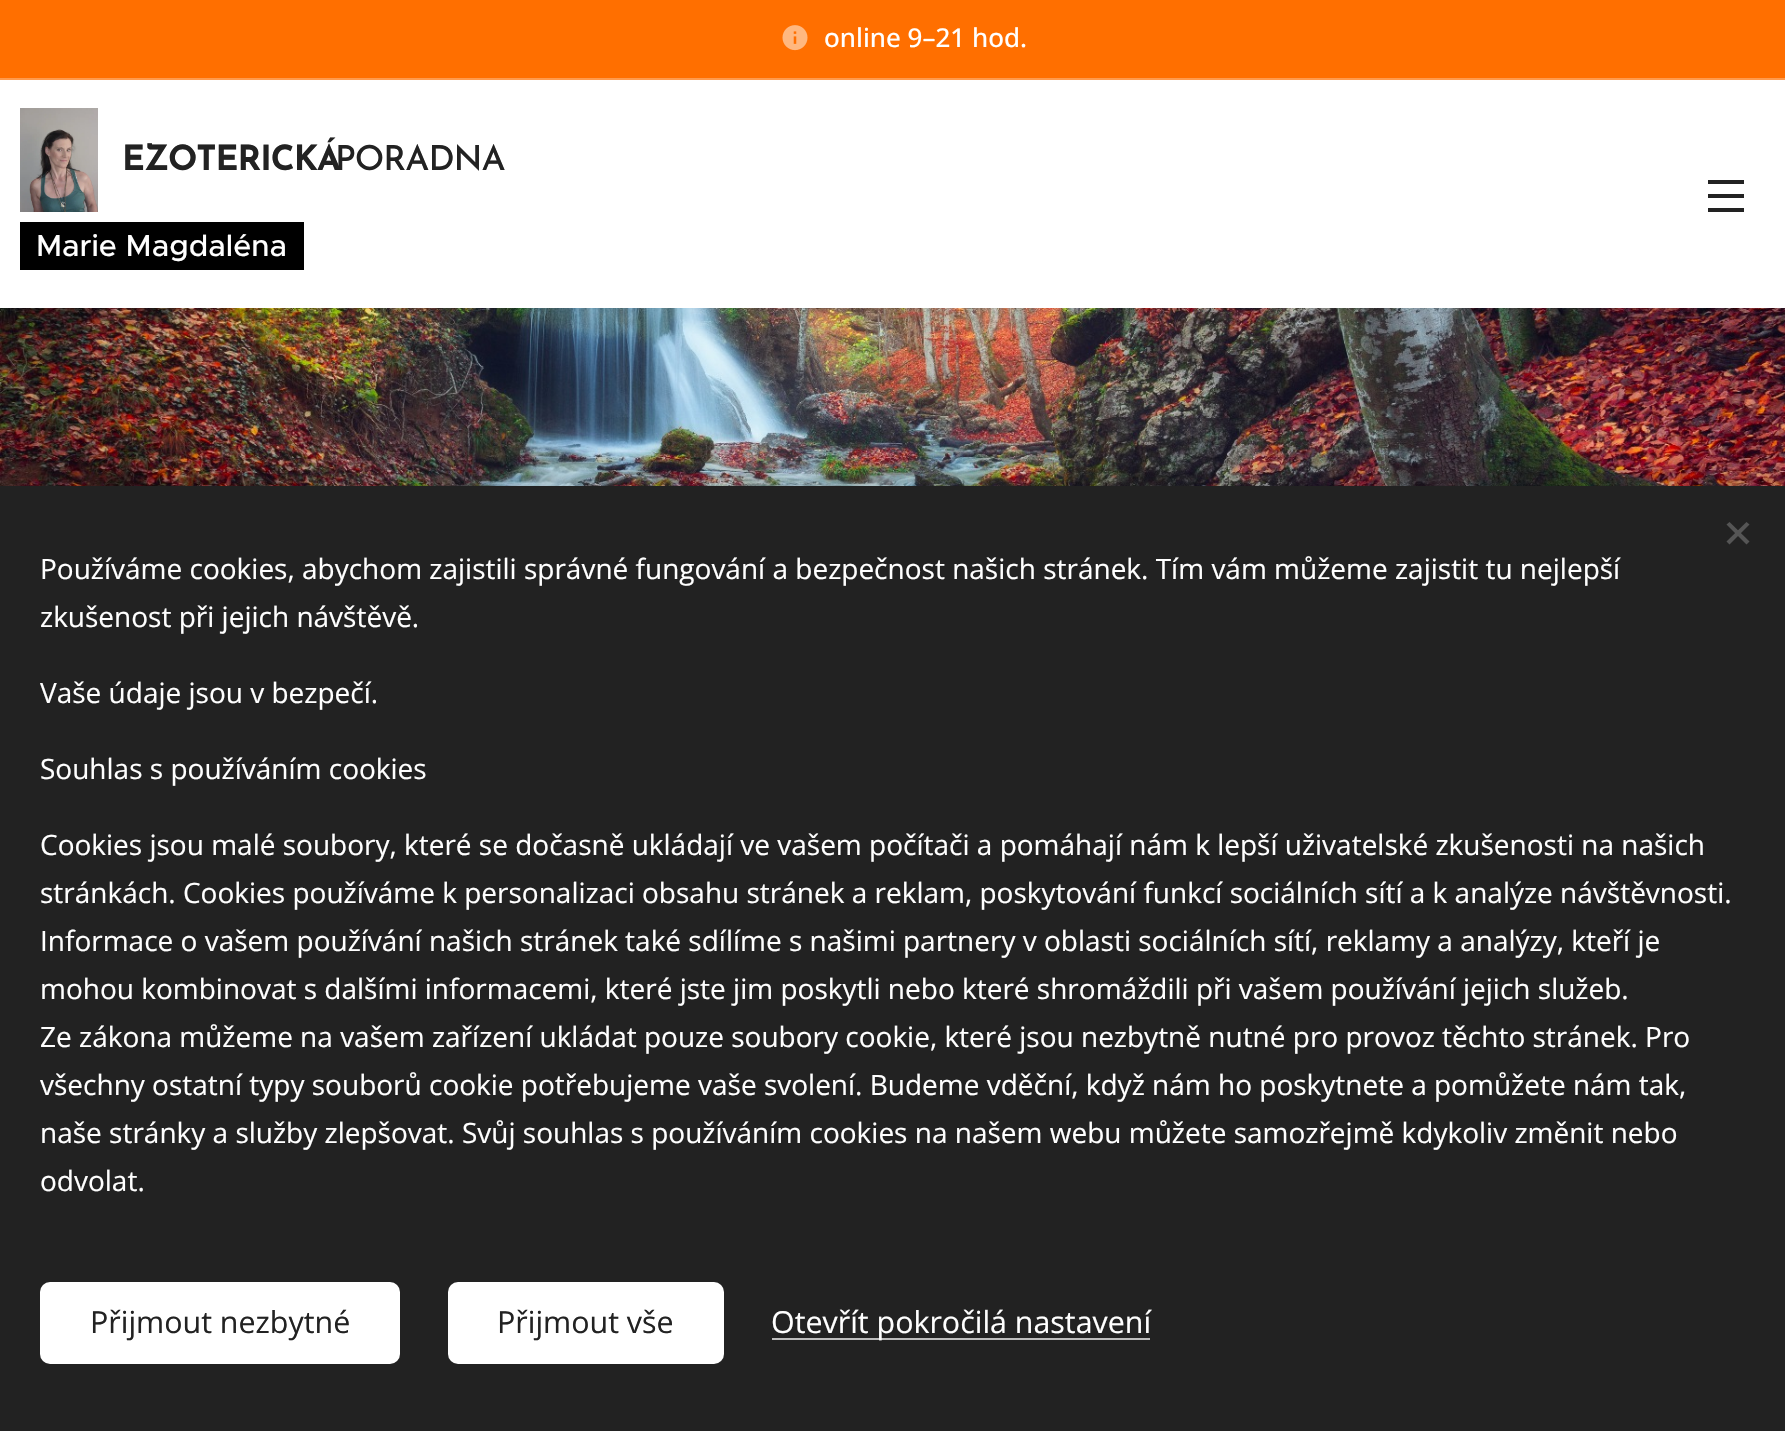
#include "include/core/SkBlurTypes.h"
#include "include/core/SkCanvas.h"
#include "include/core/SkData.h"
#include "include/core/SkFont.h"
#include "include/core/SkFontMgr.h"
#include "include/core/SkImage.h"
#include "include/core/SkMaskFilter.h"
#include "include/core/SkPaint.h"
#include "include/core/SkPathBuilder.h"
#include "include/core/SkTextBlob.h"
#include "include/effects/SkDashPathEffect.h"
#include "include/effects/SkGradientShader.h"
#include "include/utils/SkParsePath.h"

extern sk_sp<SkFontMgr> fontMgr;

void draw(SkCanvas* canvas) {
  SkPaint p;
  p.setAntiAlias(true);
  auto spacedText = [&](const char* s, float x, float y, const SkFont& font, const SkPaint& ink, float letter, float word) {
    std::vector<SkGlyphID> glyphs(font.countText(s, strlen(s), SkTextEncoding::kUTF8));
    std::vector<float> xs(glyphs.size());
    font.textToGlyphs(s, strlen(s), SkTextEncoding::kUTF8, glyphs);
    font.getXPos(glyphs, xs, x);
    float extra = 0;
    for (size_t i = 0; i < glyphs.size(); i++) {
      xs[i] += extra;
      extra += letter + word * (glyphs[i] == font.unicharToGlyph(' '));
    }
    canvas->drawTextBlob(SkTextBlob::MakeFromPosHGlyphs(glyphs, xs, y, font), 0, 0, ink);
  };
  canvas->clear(SK_ColorWHITE);
  p.setColor(SkColorSetRGB(255, 111, 0));
  canvas->drawRect(SkRect::MakeLTRB(0, 0, 1785, 78), p);
  canvas->drawImageRect(SkImages::DeferredFromEncodedData(SkData::MakeFromFileName("images/1.png")), SkRect::MakeLTRB(782, 25, 808, 51), SkSamplingOptions());
  p.setColor(SkColorSetRGB(255, 154, 77));
  canvas->drawRect(SkRect::MakeLTRB(0, 78, 1785, 80), p);
  canvas->drawImageRect(SkImages::DeferredFromEncodedData(SkData::MakeFromFileName("images/2.png")), SkRect::MakeLTRB(20, 108, 98, 212), SkSamplingOptions());
  p.setColor(SK_ColorBLACK);
  canvas->drawRect(SkRect::MakeLTRB(20, 222, 30, 270), p);
  canvas->drawRect(SkRect::MakeLTRB(30, 222, 304, 270), p);
  p.setColor(SkColorSetRGB(34, 34, 34));
  canvas->drawRect(SkRect::MakeLTRB(1708, 194, 1744, 198), p);
  canvas->drawRect(SkRect::MakeLTRB(1708, 180, 1744, 184), p);
  canvas->drawRect(SkRect::MakeLTRB(1708, 208, 1744, 212), p);
  canvas->drawImageRect(SkImages::DeferredFromEncodedData(SkData::MakeFromFileName("images/3.png")), SkRect::MakeLTRB(0, 308, 1785, 486), SkSamplingOptions());
  p.setColor(SkColorSetARGB(84, 0, 0, 0));
  p.setMaskFilter(SkMaskFilter::MakeBlur(kNormal_SkBlurStyle, 25));
  canvas->drawRect(SkRect::MakeLTRB(0, 486, 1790, 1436), p);
  p.setMaskFilter(nullptr);
  p.setColor(SkColorSetRGB(34, 34, 34));
  canvas->drawRect(SkRect::MakeLTRB(0, 486, 1785, 1431), p);
  p.setColor(SkColorSetRGB(85, 85, 85));
  canvas->drawPath(SkPathBuilder().moveTo(1726.5f, 541.5f).lineTo(1746.5f, 522).lineTo(1749.5f, 524.5f).lineTo(1729.5f, 544.5f).close().detach(), p);
  canvas->drawPath(SkPathBuilder().moveTo(1729.5f, 522).lineTo(1749.5f, 541.5f).lineTo(1746.5f, 544.5f).lineTo(1726.5f, 524.5f).close().detach(), p);
  p.setColor(SK_ColorWHITE);
  canvas->drawRoundRect(SkRect::MakeLTRB(40, 1282, 400, 1364), 10, 10, p);
  canvas->drawRoundRect(SkRect::MakeLTRB(448, 1282, 724, 1364), 10, 10, p);
  p.setColor(SkColorSetRGB(189, 189, 189));
  canvas->drawRect(SkRect::MakeLTRB(772, 1338, 1150, 1340), p);
  SkFont font1(fontMgr->matchFamilyStyle("Open Sans", SkFontStyle(500, SkFontStyle::kNormal_Width, SkFontStyle::kUpright_Slant)), 26);
  font1.setSubpixel(true);
  p.setColor(SK_ColorWHITE);
  canvas->drawString("online 9–21 hod.", 824, 47, font1, p);
  SkFont font2(fontMgr->matchFamilyStyle("Josefin Sans", SkFontStyle::Bold()), 34.5f);
  font2.setSubpixel(true);
  p.setColor(SkColorSetRGB(34, 34, 34));
  spacedText("EZOTERICKÁ", 122, 170, font2, p, -1, 0);
  SkFont font3(fontMgr->matchFamilyStyle("Josefin Sans", SkFontStyle(500, SkFontStyle::kNormal_Width, SkFontStyle::kUpright_Slant)), 34.5f);
  font3.setSubpixel(true);
  spacedText("PORADNA", 335, 170, font3, p, -1, 0);
  SkFont font4(fontMgr->matchFamilyStyle("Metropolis", SkFontStyle(500, SkFontStyle::kNormal_Width, SkFontStyle::kUpright_Slant)), 30.4f);
  font4.setSubpixel(true);
  p.setColor(SK_ColorWHITE);
  canvas->drawString("Marie Magdaléna", 36, 256, font4, p);
  SkFont font5(fontMgr->matchFamilyStyle("Open Sans", SkFontStyle::Normal()), 28);
  font5.setSubpixel(true);
  canvas->drawString("Používáme cookies, abychom zajistili správné fungování a bezpečnost našich stránek. Tím vám můžeme zajistit tu nejlepší", 40, 579, font5, p);
  canvas->drawString("zkušenost při jejich návštěvě.", 40, 627, font5, p);
  canvas->drawString("Vaše údaje jsou v bezpečí.", 40, 703, font5, p);
  canvas->drawString("Souhlas s používáním cookies", 40, 779, font5, p);
  canvas->drawString("Cookies jsou malé soubory, které se dočasně ukládají ve vašem počítači a pomáhají nám k lepší uživatelské zkušenosti na našich", 40, 855, font5, p);
  canvas->drawString("stránkách. Cookies používáme k personalizaci obsahu stránek a reklam, poskytování funkcí sociálních sítí a k analýze návštěvnosti.", 40, 903, font5, p);
  canvas->drawString("Informace o vašem používání našich stránek také sdílíme s našimi partnery v oblasti sociálních sítí, reklamy a analýzy, kteří je", 40, 951, font5, p);
  canvas->drawString("mohou kombinovat s dalšími informacemi, které jste jim poskytli nebo které shromáždili při vašem používání jejich služeb.", 40, 999, font5, p);
  canvas->drawString("Ze zákona můžeme na vašem zařízení ukládat pouze soubory cookie, které jsou nezbytně nutné pro provoz těchto stránek. Pro", 40, 1047, font5, p);
  canvas->drawString("všechny ostatní typy souborů cookie potřebujeme vaše svolení. Budeme vděční, když nám ho poskytnete a pomůžete nám tak,", 40, 1095, font5, p);
  canvas->drawString("naše stránky a služby zlepšovat. Svůj souhlas s používáním cookies na našem webu můžete samozřejmě kdykoliv změnit nebo", 40, 1143, font5, p);
  canvas->drawString("odvolat.", 40, 1191, font5, p);
  SkFont font6(fontMgr->matchFamilyStyle("Open Sans", SkFontStyle::Normal()), 30.4f);
  font6.setSubpixel(true);
  p.setColor(SkColorSetRGB(34, 34, 34));
  canvas->drawString("Přijmout nezbytné", 90, 1333, font6, p);
  canvas->drawString("Přijmout vše", 497, 1333, font6, p);
  p.setColor(SK_ColorWHITE);
  canvas->drawString("Otevřít pokročilá nastavení", 771, 1333, font6, p);
}
